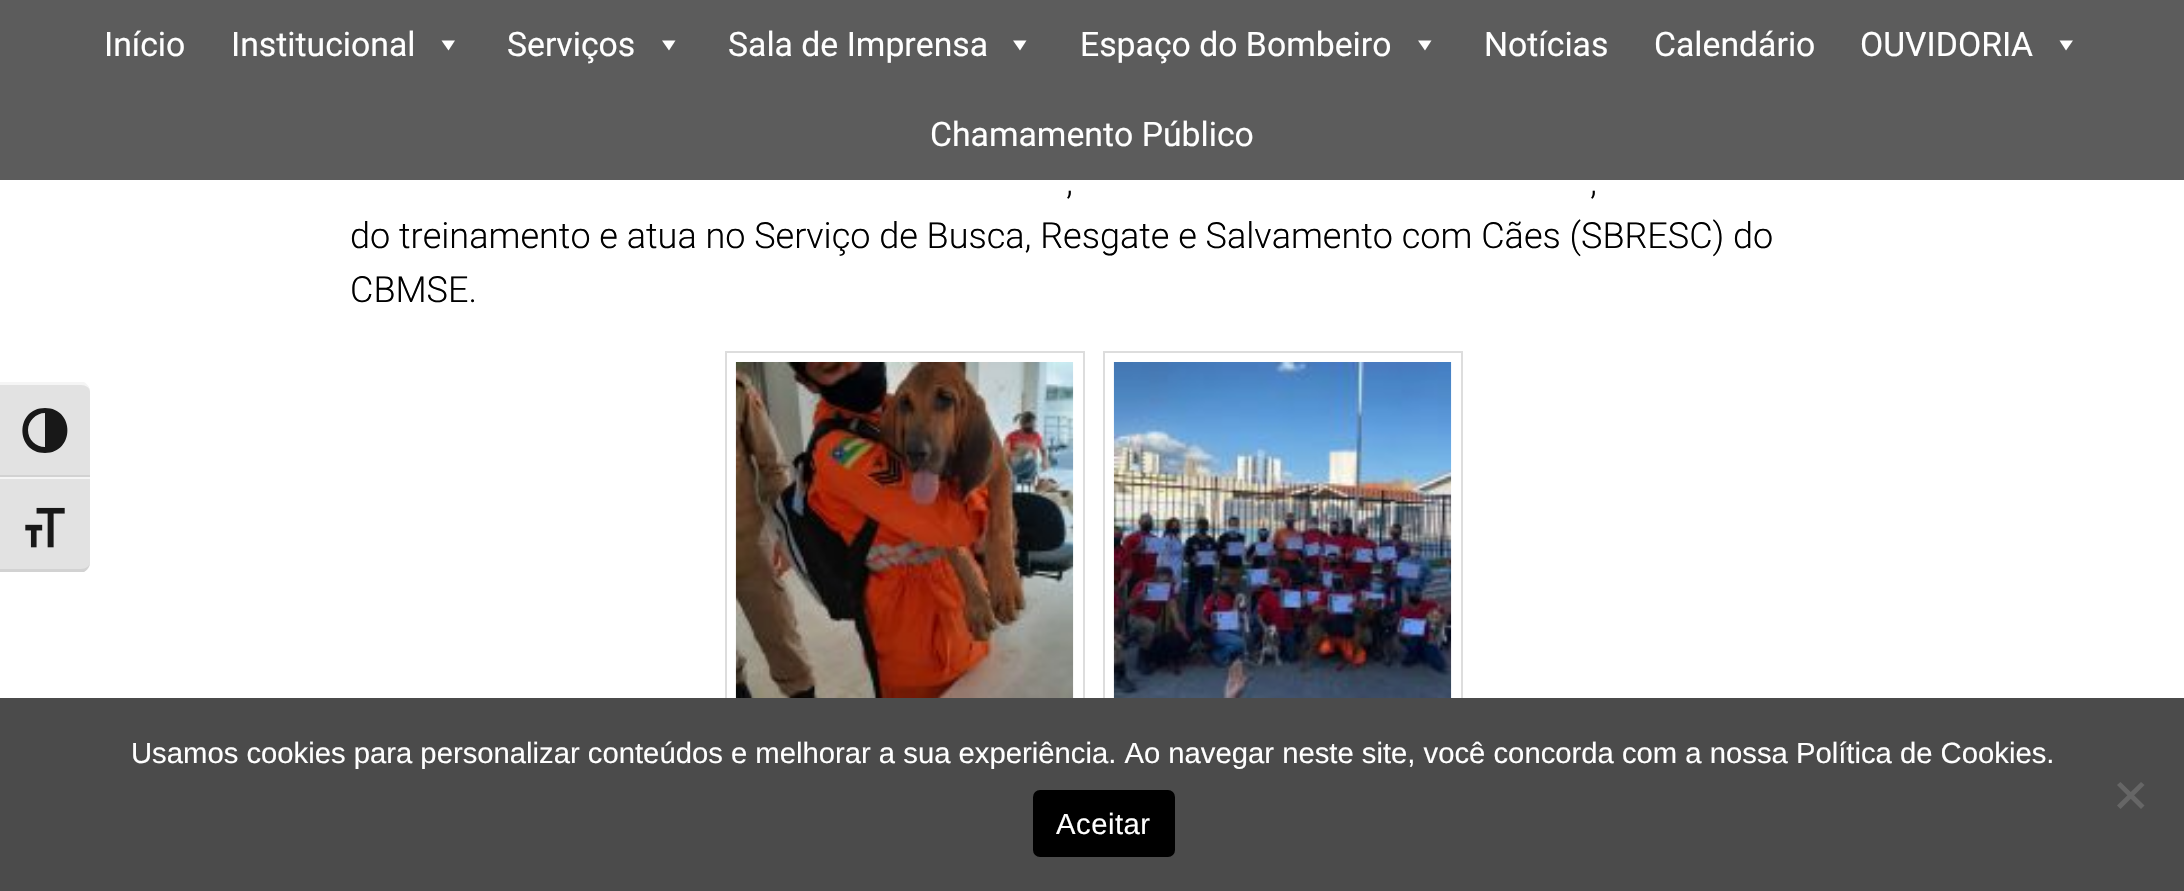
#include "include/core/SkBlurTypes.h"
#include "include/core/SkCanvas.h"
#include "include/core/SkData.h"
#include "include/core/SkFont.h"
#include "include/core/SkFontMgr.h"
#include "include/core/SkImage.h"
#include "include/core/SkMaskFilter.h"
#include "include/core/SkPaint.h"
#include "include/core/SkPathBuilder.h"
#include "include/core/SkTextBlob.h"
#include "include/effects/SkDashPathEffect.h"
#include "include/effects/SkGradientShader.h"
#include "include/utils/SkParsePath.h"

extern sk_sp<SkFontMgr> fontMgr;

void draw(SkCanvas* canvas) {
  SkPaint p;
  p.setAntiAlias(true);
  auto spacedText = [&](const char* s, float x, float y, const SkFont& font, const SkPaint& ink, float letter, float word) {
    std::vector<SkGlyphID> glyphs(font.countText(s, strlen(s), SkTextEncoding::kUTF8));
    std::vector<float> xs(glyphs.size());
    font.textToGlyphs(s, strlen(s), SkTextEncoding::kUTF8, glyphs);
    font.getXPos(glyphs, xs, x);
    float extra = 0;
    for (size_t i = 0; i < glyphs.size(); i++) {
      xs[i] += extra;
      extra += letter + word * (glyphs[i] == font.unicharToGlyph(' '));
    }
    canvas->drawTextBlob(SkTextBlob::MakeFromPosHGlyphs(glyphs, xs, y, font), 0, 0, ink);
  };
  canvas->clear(SK_ColorWHITE);
  p.setColor(SkColorSetRGB(92, 92, 92));
  canvas->drawRect(SkRect::MakeLTRB(0, 0, 2184, 180), p);
  p.setColor(SK_ColorWHITE);
  canvas->drawPath(SkPathBuilder().moveTo(455, 40.5f).lineTo(448.5f, 50.5f).lineTo(441.5f, 40.5f).close().detach(), p);
  canvas->drawPath(SkPathBuilder().moveTo(675.5f, 40.5f).lineTo(669, 50.5f).lineTo(662, 40.5f).close().detach(), p);
  canvas->drawPath(SkPathBuilder().moveTo(1026.5f, 40.5f).lineTo(1020, 50.5f).lineTo(1013, 40.5f).close().detach(), p);
  canvas->drawPath(SkPathBuilder().moveTo(1431.5f, 40.5f).lineTo(1425, 50.5f).lineTo(1418, 40.5f).close().detach(), p);
  canvas->drawPath(SkPathBuilder().moveTo(2073, 40.5f).lineTo(2066, 50.5f).lineTo(2059.5f, 40.5f).close().detach(), p);
  p.setStyle(SkPaint::kStroke_Style);
  p.setStrokeWidth(2);
  p.setColor(SkColorSetRGB(221, 221, 221));
  canvas->drawRect(SkRect::MakeLTRB(726, 352, 1084, 710), p);
  canvas->drawImageRect(SkImages::DeferredFromEncodedData(SkData::MakeFromFileName("images/1.png")), SkRect::MakeLTRB(735, 362, 1074, 698), SkSamplingOptions());
  canvas->drawRect(SkRect::MakeLTRB(1104, 352, 1462, 710), p);
  canvas->drawImageRect(SkImages::DeferredFromEncodedData(SkData::MakeFromFileName("images/2.png")), SkRect::MakeLTRB(1113, 362, 1452, 698), SkSamplingOptions());
  p.setStyle(SkPaint::kFill_Style);
  p.setColor(SkColorSetRGB(226, 226, 226));
  canvas->drawPath(SkPathBuilder().moveTo(0, 383).lineTo(81, 383).cubicTo(86, 383, 90, 387, 90, 392).lineTo(90, 477).lineTo(0, 477).close().detach(), p);
  p.setColor(SkColorSetRGB(245, 245, 245));
  canvas->drawPath(SkPathBuilder().moveTo(0, 385).lineTo(81, 385).cubicTo(86, 385, 90, 388, 90, 392).cubicTo(90, 388, 87, 384, 84, 382).lineTo(0, 382).close().detach(), p);
  p.setColor(SkColorSetRGB(210, 210, 210));
  canvas->drawRect(SkRect::MakeLTRB(0, 475, 90, 477), p);
  p.setColor(SkColorSetRGB(24, 24, 24));
  canvas->drawPath(SkPathBuilder().moveTo(45, 408).cubicTo(15, 408, 15, 453, 45, 453).cubicTo(75, 453, 75, 408, 45, 408).close().moveTo(28, 430).cubicTo(28, 421, 36, 413, 45, 413).lineTo(45, 447).cubicTo(36, 447, 28, 440, 28, 430).close().detach(), p);
  p.setColor(SkColorSetRGB(226, 226, 226));
  canvas->drawPath(SkPathBuilder().moveTo(0, 477).lineTo(90, 477).lineTo(90, 563).cubicTo(90, 568, 86, 572, 81, 572).lineTo(0, 572).close().detach(), p);
  p.setColor(SkColorSetRGB(245, 245, 245));
  canvas->drawRect(SkRect::MakeLTRB(0, 477, 90, 479), p);
  p.setColor(SkColorSetRGB(210, 210, 210));
  canvas->drawPath(SkPathBuilder().moveTo(84, 572).cubicTo(87, 570, 90, 566, 90, 562).cubicTo(90, 566, 86, 569, 81, 569).lineTo(0, 569).lineTo(0, 572).close().detach(), p);
  canvas->drawImageRect(SkImages::DeferredFromEncodedData(SkData::MakeFromFileName("images/3.png")), SkRect::MakeLTRB(25, 507, 65, 548), SkSamplingOptions());
  p.setColor(SkColorSetRGB(75, 75, 75));
  canvas->drawRect(SkRect::MakeLTRB(0, 698, 2184, 891), p);
  p.setColor(SkColorSetRGB(102, 102, 102));
  canvas->drawPath(SkPathBuilder().moveTo(2141, 782).lineTo(2144.5f, 785).lineTo(2120.5f, 809).lineTo(2117, 805.5f).close().detach(), p);
  canvas->drawPath(SkPathBuilder().moveTo(2117, 785).lineTo(2120.5f, 782).lineTo(2144.5f, 805.5f).lineTo(2141, 809).close().detach(), p);
  p.setColor(SK_ColorBLACK);
  canvas->drawRoundRect(SkRect::MakeLTRB(1033, 790, 1175, 857), 7, 7, p);
  SkFont font1(fontMgr->matchFamilyStyle("Roboto", SkFontStyle::Normal()), 33.75f);
  font1.setSubpixel(true);
  p.setColor(SK_ColorWHITE);
  canvas->drawString("Início", 104, 56, font1, p);
  canvas->drawString("Institucional", 231, 56, font1, p);
  canvas->drawString("Serviços", 507, 56, font1, p);
  canvas->drawString("Sala de Imprensa", 728, 56, font1, p);
  canvas->drawString("Espaço do Bombeiro", 1080, 56, font1, p);
  canvas->drawString("Notícias", 1484, 56, font1, p);
  canvas->drawString("Calendário", 1654, 56, font1, p);
  canvas->drawString("OUVIDORIA", 1860, 56, font1, p);
  canvas->drawString("Chamamento Público", 930, 146, font1, p);
  SkFont font2(fontMgr->matchFamilyStyle("Roboto", SkFontStyle(300, SkFontStyle::kNormal_Width, SkFontStyle::kUpright_Slant)), 36);
  font2.setSubpixel(true);
  p.setColor(SK_ColorBLACK);
  canvas->drawString(",", 1066, 194, font2, p);
  canvas->drawString(",", 1590, 194, font2, p);
  canvas->drawString("do treinamento e atua no Serviço de Busca, Resgate e Salvamento com Cães (SBRESC) do", 350, 248, font2, p);
  canvas->drawString("CBMSE.", 350, 302, font2, p);
  SkFont font3(fontMgr->matchFamilyStyle("Liberation Sans", SkFontStyle::Normal()), 29.25f);
  font3.setSubpixel(true);
  p.setColor(SK_ColorWHITE);
  canvas->drawString("Usamos cookies para personalizar conteúdos e melhorar a sua experiência. Ao navegar neste site, você concorda com a nossa Política de Cookies.", 131, 763, font3, p);
  spacedText("Aceitar", 1056, 834, font3, p, 0.5f, 0);
}
